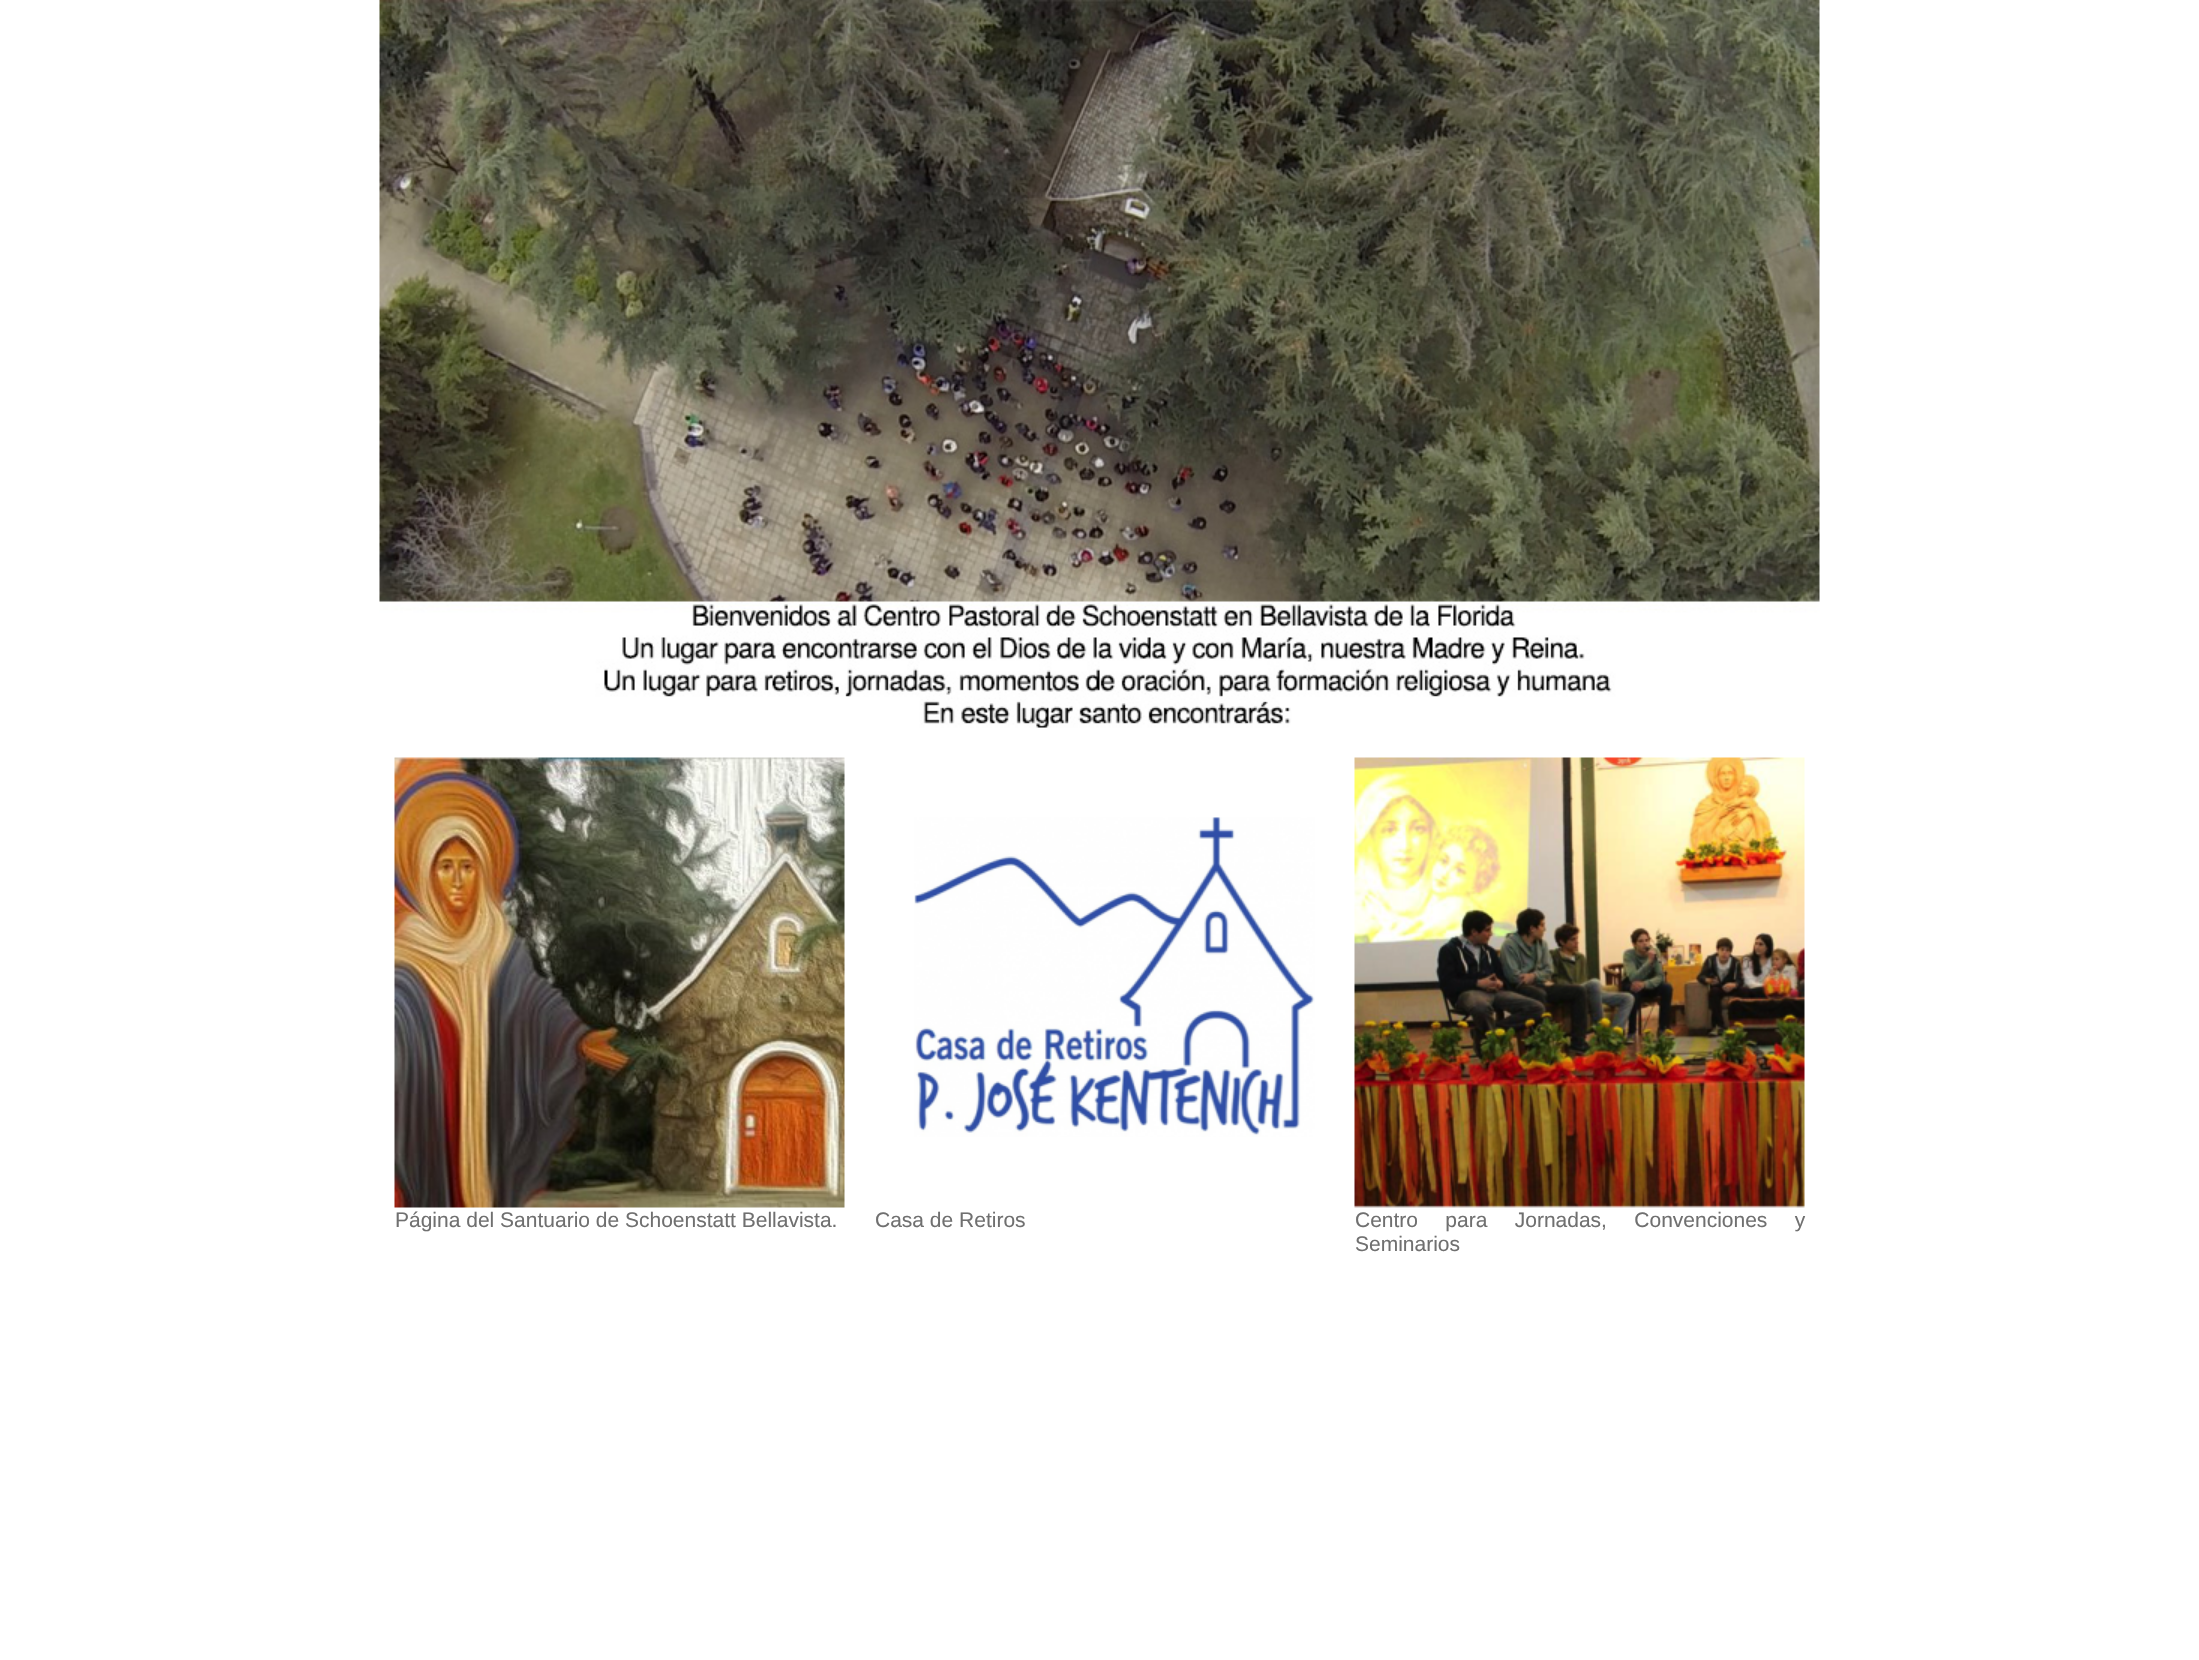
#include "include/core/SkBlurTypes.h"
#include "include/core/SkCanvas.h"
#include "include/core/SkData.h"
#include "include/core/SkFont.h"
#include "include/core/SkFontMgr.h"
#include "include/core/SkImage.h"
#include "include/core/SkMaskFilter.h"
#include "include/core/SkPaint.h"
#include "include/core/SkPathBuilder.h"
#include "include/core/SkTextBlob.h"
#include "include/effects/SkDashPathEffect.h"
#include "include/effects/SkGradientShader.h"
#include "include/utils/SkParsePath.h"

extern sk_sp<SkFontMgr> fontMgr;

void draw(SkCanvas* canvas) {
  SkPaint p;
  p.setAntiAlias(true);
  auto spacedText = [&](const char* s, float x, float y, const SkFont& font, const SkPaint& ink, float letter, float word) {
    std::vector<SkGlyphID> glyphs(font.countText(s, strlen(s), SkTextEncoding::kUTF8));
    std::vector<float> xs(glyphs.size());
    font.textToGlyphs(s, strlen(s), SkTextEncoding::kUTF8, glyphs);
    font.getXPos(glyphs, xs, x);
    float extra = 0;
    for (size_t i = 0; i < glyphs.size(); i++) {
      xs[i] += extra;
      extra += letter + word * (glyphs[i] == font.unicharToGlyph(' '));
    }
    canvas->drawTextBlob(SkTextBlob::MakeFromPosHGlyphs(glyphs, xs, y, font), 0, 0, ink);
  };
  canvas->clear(SK_ColorWHITE);
  canvas->drawImageRect(SkImages::DeferredFromEncodedData(SkData::MakeFromFileName("images/1.png")), SkRect::MakeLTRB(379, 0, 1820, 728), SkSamplingOptions());
  canvas->drawImageRect(SkImages::DeferredFromEncodedData(SkData::MakeFromFileName("images/2.png")), SkRect::MakeLTRB(394, 757, 845, 1208), SkSamplingOptions());
  canvas->drawImageRect(SkImages::DeferredFromEncodedData(SkData::MakeFromFileName("images/3.png")), SkRect::MakeLTRB(914, 817, 1315, 1137), SkSamplingOptions());
  canvas->drawImageRect(SkImages::DeferredFromEncodedData(SkData::MakeFromFileName("images/4.png")), SkRect::MakeLTRB(1354, 757, 1805, 1208), SkSamplingOptions());
  SkFont font1(fontMgr->matchFamilyStyle("Liberation Sans", SkFontStyle::Normal()), 21);
  font1.setSubpixel(true);
  p.setColor(SkColorSetRGB(112, 112, 112));
  canvas->drawString("Página del Santuario de Schoenstatt Bellavista.", 395, 1227, font1, p);
  canvas->drawString("Casa de Retiros", 875, 1227, font1, p);
  spacedText("Centro para Jornadas, Convenciones y", 1355, 1227, font1, p, 0, 21.5f);
  canvas->drawString("Seminarios", 1355, 1251, font1, p);
}
